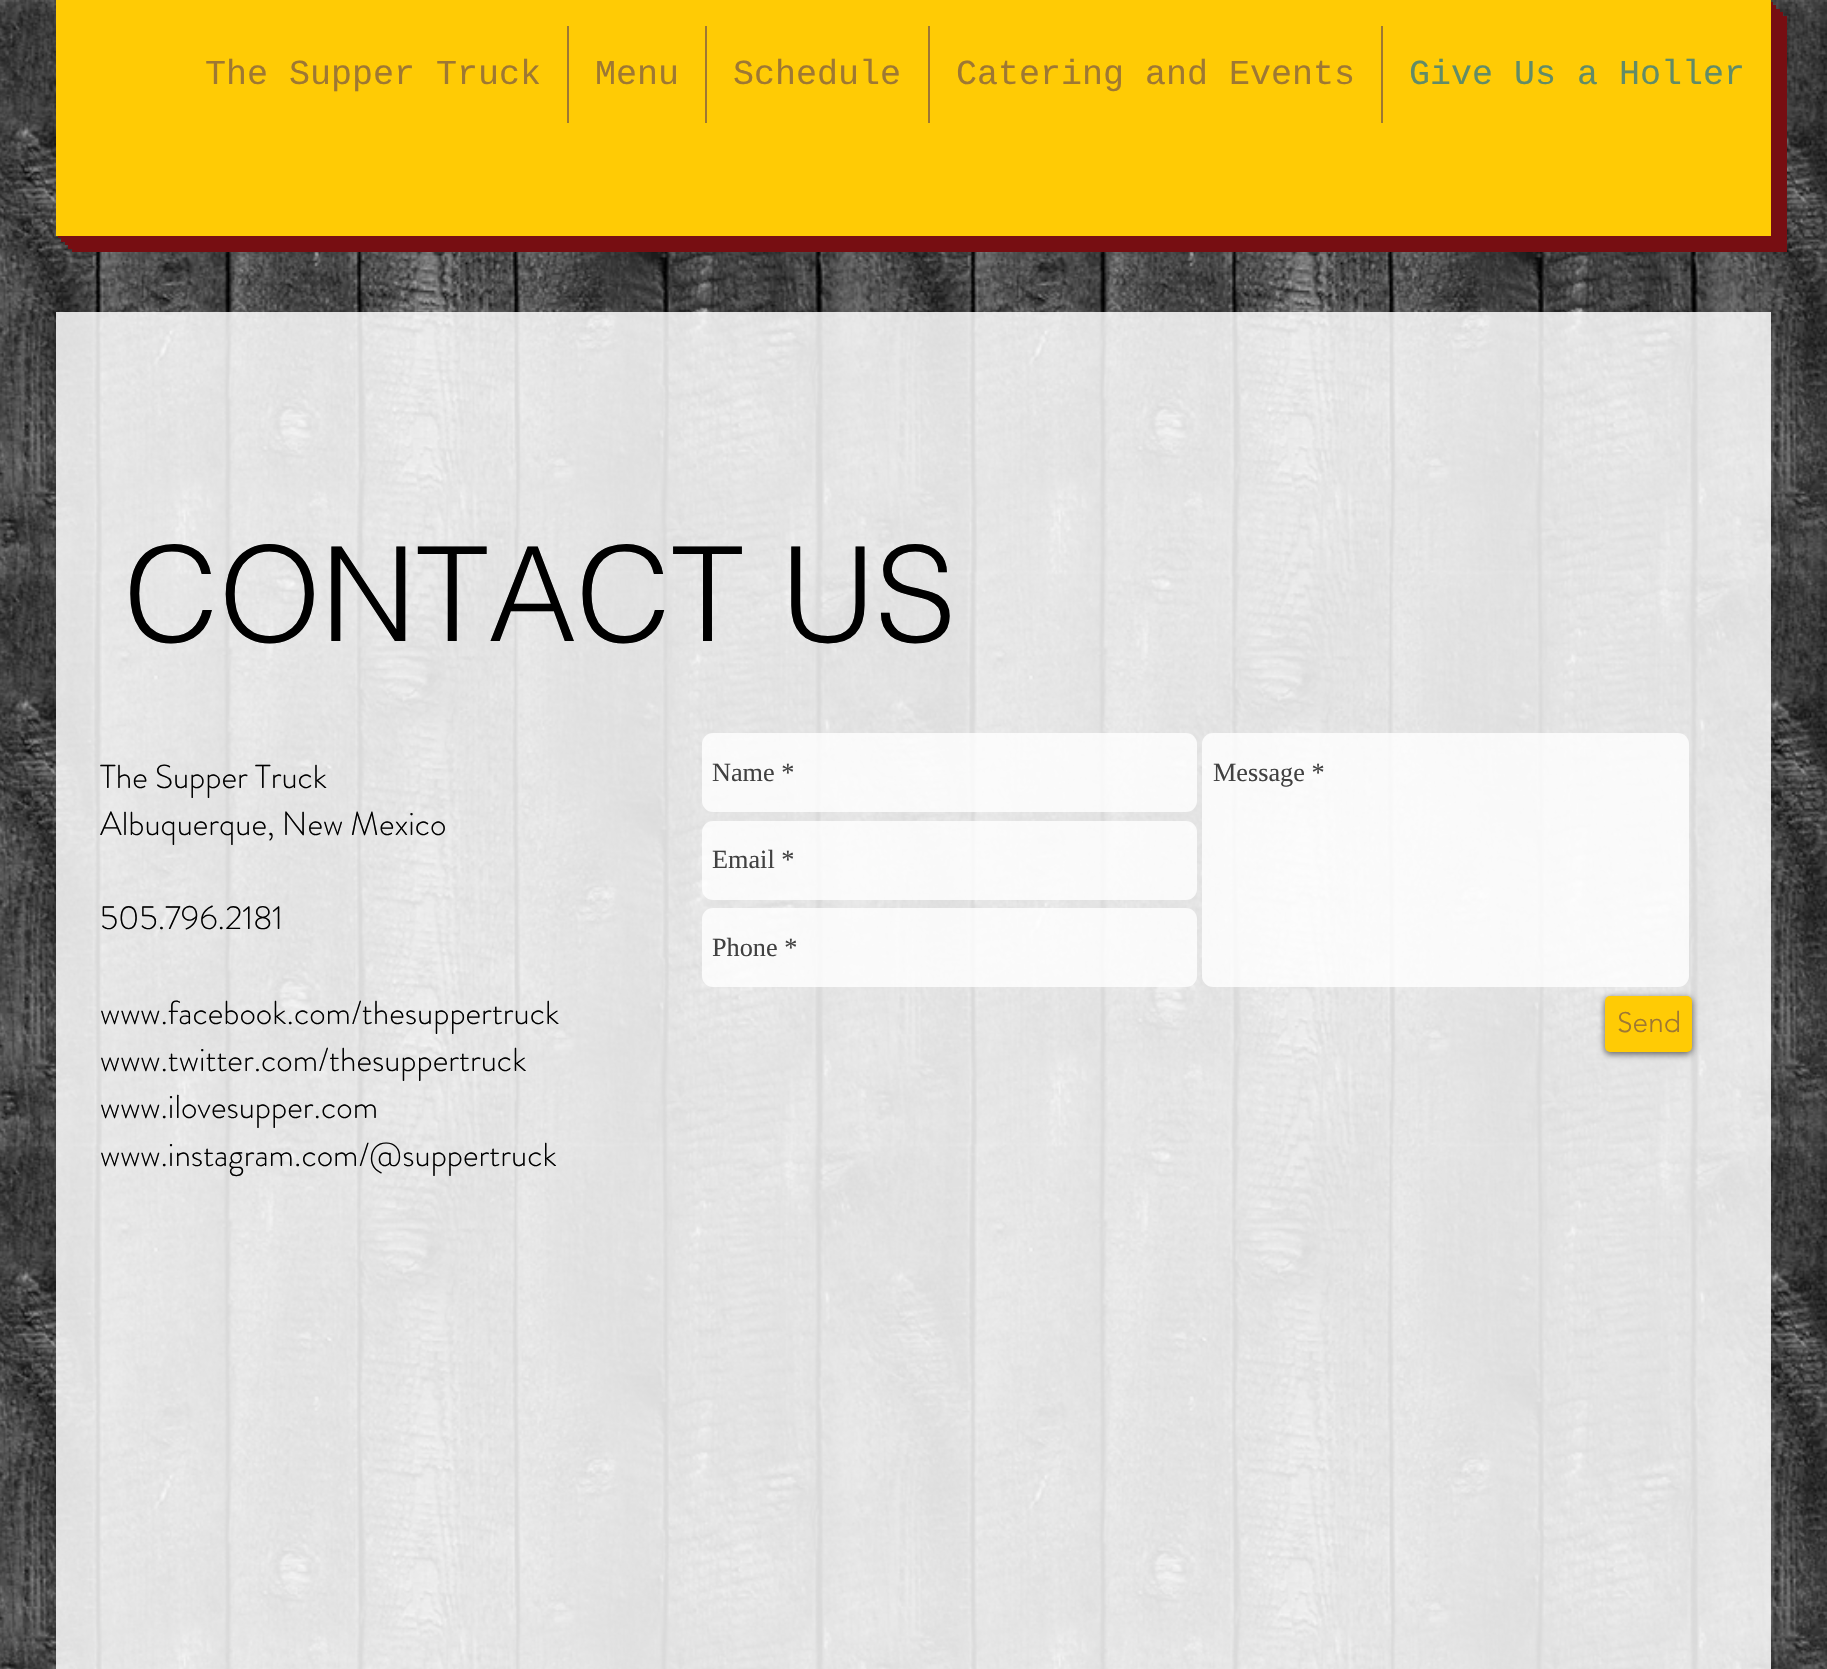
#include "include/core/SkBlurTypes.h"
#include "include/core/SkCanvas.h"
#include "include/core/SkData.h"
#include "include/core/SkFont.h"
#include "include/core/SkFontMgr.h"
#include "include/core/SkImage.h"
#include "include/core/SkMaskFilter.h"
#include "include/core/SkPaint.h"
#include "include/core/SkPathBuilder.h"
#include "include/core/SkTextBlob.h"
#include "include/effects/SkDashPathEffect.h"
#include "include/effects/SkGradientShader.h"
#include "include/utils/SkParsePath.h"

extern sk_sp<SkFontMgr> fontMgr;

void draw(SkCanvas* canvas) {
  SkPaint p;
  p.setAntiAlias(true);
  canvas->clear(SK_ColorWHITE);
  canvas->drawImageRect(SkImages::DeferredFromEncodedData(SkData::MakeFromFileName("images/1.png")), SkRect::MakeLTRB(0, 0, 1827, 1669), SkSamplingOptions());
  p.setColor(SkColorSetRGB(119, 14, 18));
  canvas->drawPath(SkPathBuilder().moveTo(72, 236).lineTo(72, 252).lineTo(1787, 252).lineTo(1787, 16).lineTo(1771, 16).lineTo(1771, 236).close().detach(), p);
  canvas->drawPath(SkPathBuilder().moveTo(68, 236).lineTo(68, 249).lineTo(1783, 249).lineTo(1783, 12).lineTo(1771, 12).lineTo(1771, 236).close().detach(), p);
  canvas->drawPath(SkPathBuilder().moveTo(65, 236).lineTo(65, 245).lineTo(1780, 245).lineTo(1780, 9).lineTo(1771, 9).lineTo(1771, 236).close().detach(), p);
  canvas->drawPath(SkPathBuilder().moveTo(61, 236).lineTo(61, 242).lineTo(1776, 242).lineTo(1776, 5).lineTo(1771, 5).lineTo(1771, 236).close().detach(), p);
  canvas->drawPath(SkPathBuilder().moveTo(58, 236).lineTo(58, 238).lineTo(1773, 238).lineTo(1773, 2).lineTo(1771, 2).lineTo(1771, 236).close().detach(), p);
  p.setColor(SkColorSetRGB(255, 203, 5));
  canvas->drawRect(SkRect::MakeLTRB(56, 0, 1771, 236), p);
  p.setColor(SkColorSetRGB(158, 120, 51));
  canvas->drawRect(SkRect::MakeLTRB(567, 26, 569, 123), p);
  canvas->drawRect(SkRect::MakeLTRB(705, 26, 707, 123), p);
  canvas->drawRect(SkRect::MakeLTRB(928, 26, 930, 123), p);
  canvas->drawRect(SkRect::MakeLTRB(1381, 26, 1383, 123), p);
  p.setColor(SkColorSetARGB(217, 255, 255, 255));
  canvas->drawRect(SkRect::MakeLTRB(56, 312, 1771, 1669), p);
  p.setColor(SkColorSetARGB(204, 255, 255, 255));
  canvas->drawRoundRect(SkRect::MakeLTRB(702, 733, 1197, 812), 11, 11, p);
  canvas->drawRoundRect(SkRect::MakeLTRB(1202, 733, 1689, 987), 11, 11, p);
  canvas->drawRoundRect(SkRect::MakeLTRB(702, 821, 1197, 900), 11, 11, p);
  canvas->drawRoundRect(SkRect::MakeLTRB(702, 908, 1197, 987), 11, 11, p);
  p.setColor(SkColorSetARGB(153, 0, 0, 0));
  p.setMaskFilter(SkMaskFilter::MakeBlur(kNormal_SkBlurStyle, 3.5f));
  canvas->drawRoundRect(SkRect::MakeLTRB(1605, 998, 1692, 1054), 5, 5, p);
  p.setMaskFilter(nullptr);
  p.setColor(SkColorSetRGB(255, 203, 5));
  canvas->drawRoundRect(SkRect::MakeLTRB(1605, 996, 1692, 1052), 5, 5, p);
  SkFont font1(fontMgr->matchFamilyStyle("Liberation Mono", SkFontStyle::Normal()), 35);
  font1.setSubpixel(true);
  p.setColor(SkColorSetRGB(158, 120, 51));
  canvas->drawString("The Supper Truck", 205, 84, font1, p);
  canvas->drawString("Menu", 595, 84, font1, p);
  canvas->drawString("Schedule", 733, 84, font1, p);
  canvas->drawString("Catering and Events", 956, 84, font1, p);
  p.setColor(SkColorSetRGB(98, 140, 103));
  canvas->drawString("Give Us a Holler", 1409, 84, font1, p);
  SkFont font2(fontMgr->matchFamilyStyle("helvetica", SkFontStyle(300, SkFontStyle::kNormal_Width, SkFontStyle::kUpright_Slant)), 131.25f);
  font2.setSubpixel(true);
  p.setColor(SK_ColorBLACK);
  canvas->drawString("CONTACT US", 124, 641, font2, p);
  SkFont font3(fontMgr->matchFamilyStyle("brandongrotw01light", SkFontStyle(300, SkFontStyle::kNormal_Width, SkFontStyle::kUpright_Slant)), 33.25f);
  font3.setSubpixel(true);
  canvas->drawString("The Supper Truck", 100, 788, font3, p);
  canvas->drawString("Albuquerque, New Mexico", 100, 835, font3, p);
  canvas->drawString("505.796.2181", 100, 929, font3, p);
  canvas->drawString("www.facebook.com/thesuppertruck", 100, 1024, font3, p);
  canvas->drawString("www.twitter.com/thesuppertruck", 100, 1071, font3, p);
  canvas->drawString("www.ilovesupper.com", 100, 1118, font3, p);
  canvas->drawString("www.instagram.com/@suppertruck", 100, 1166, font3, p);
  SkFont font4(fontMgr->matchFamilyStyle("Liberation Serif", SkFontStyle::Normal()), 26.25f);
  font4.setSubpixel(true);
  p.setColor(SkColorSetRGB(65, 65, 65));
  canvas->drawString("Name *", 712, 781, font4, p);
  canvas->drawString("Message *", 1213, 781, font4, p);
  canvas->drawString("Email *", 712, 868, font4, p);
  canvas->drawString("Phone *", 712, 956, font4, p);
  SkFont font5(fontMgr->matchFamilyStyle("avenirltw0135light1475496", SkFontStyle(300, SkFontStyle::kNormal_Width, SkFontStyle::kUpright_Slant)), 28);
  font5.setSubpixel(true);
  p.setColor(SkColorSetRGB(158, 120, 51));
  canvas->drawString("Send", 1617, 1032, font5, p);
}
